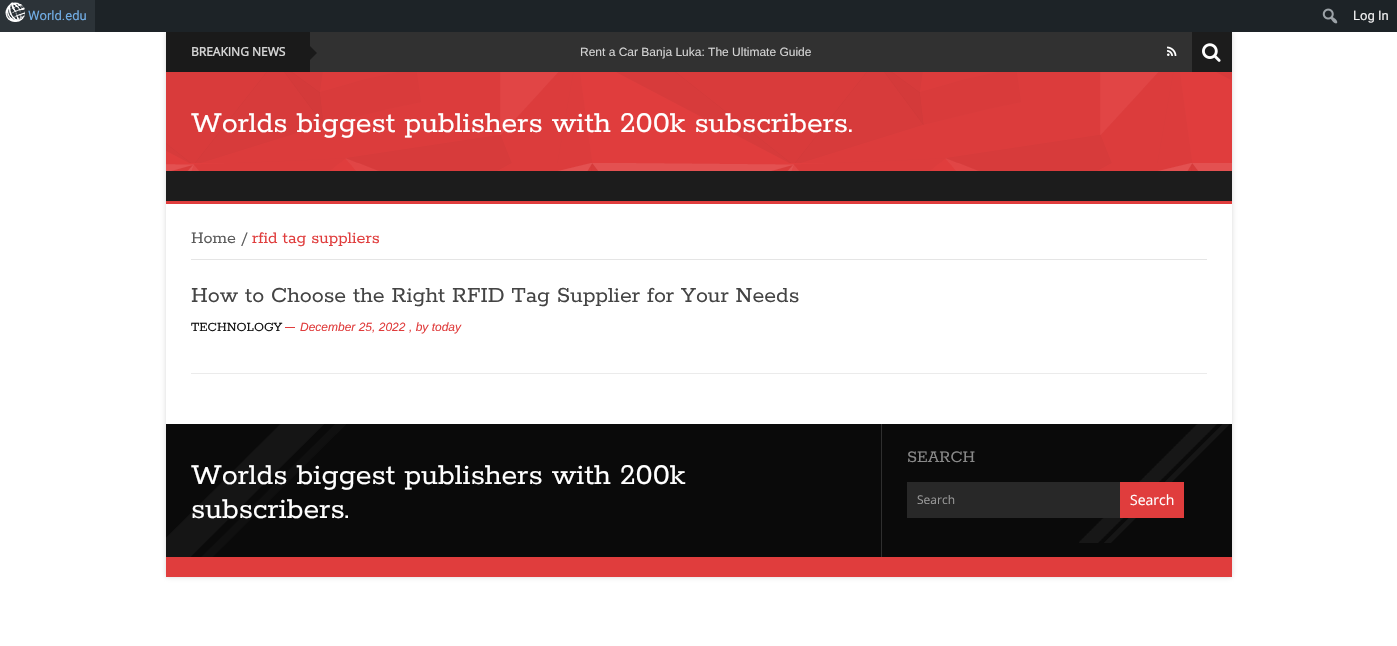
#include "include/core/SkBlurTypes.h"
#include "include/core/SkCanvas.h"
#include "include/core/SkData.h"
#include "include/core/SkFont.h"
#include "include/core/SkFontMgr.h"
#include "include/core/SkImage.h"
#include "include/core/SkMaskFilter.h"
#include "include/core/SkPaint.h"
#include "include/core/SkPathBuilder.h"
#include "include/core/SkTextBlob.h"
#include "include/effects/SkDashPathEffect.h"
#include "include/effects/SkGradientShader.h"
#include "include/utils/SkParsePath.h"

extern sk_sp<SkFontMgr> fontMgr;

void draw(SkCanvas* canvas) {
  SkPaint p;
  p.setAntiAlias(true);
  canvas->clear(SK_ColorWHITE);
  canvas->save();
  canvas->clipPath(SkPathBuilder(SkPathFillType::kEvenOdd).moveTo(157, 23).lineTo(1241, 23).lineTo(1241, 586).lineTo(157, 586).close().moveTo(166, 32).lineTo(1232, 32).lineTo(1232, 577).lineTo(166, 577).close().detach(), true);
  p.setColor(SkColorSetARGB(191, 202, 202, 202));
  p.setMaskFilter(SkMaskFilter::MakeBlur(kNormal_SkBlurStyle, 2.5f));
  canvas->drawRect(SkRect::MakeLTRB(166, 32, 1232, 577), p);
  p.setMaskFilter(nullptr);
  canvas->restore();
  p.setColor(SkColorSetRGB(29, 35, 39));
  canvas->drawRect(SkRect::MakeLTRB(95, 0, 1397, 32), p);
  canvas->drawImageRect(SkImages::DeferredFromEncodedData(SkData::MakeFromFileName("images/1.png")), SkRect::MakeLTRB(1322, 8, 1338, 24), SkSamplingOptions());
  p.setColor(SkColorSetRGB(44, 51, 56));
  canvas->drawRect(SkRect::MakeLTRB(0, 0, 95, 32), p);
  canvas->drawImageRect(SkImages::DeferredFromEncodedData(SkData::MakeFromFileName("images/2.png")), SkRect::MakeLTRB(5, 2, 25, 22), SkSamplingOptions());
  p.setColor(SkColorSetRGB(49, 49, 49));
  canvas->drawRect(SkRect::MakeLTRB(310, 32, 1192, 72), p);
  p.setColor(SkColorSetRGB(26, 26, 26));
  canvas->drawRect(SkRect::MakeLTRB(166, 32, 310, 72), p);
  canvas->drawPath(SkPathBuilder().moveTo(310, 60).lineTo(310, 46).lineTo(317, 53).close().detach(), p);
  canvas->drawImageRect(SkImages::DeferredFromEncodedData(SkData::MakeFromFileName("images/3.png")), SkRect::MakeLTRB(1167, 46, 1177, 56), SkSamplingOptions());
  p.setColor(SkColorSetRGB(28, 28, 28));
  canvas->drawRect(SkRect::MakeLTRB(1192, 32, 1232, 72), p);
  canvas->drawImageRect(SkImages::DeferredFromEncodedData(SkData::MakeFromFileName("images/4.png")), SkRect::MakeLTRB(1202, 43, 1221, 62), SkSamplingOptions());
  p.setColor(SkColorSetRGB(224, 61, 61));
  canvas->drawRect(SkRect::MakeLTRB(166, 72, 1232, 171), p);
  canvas->drawImageRect(SkImages::DeferredFromEncodedData(SkData::MakeFromFileName("images/5.png")), SkRect::MakeLTRB(166, 72, 1232, 171), SkSamplingOptions());
  p.setColor(SkColorSetRGB(28, 28, 28));
  canvas->drawRect(SkRect::MakeLTRB(166, 171, 1232, 201), p);
  p.setColor(SkColorSetRGB(224, 61, 61));
  canvas->drawRect(SkRect::MakeLTRB(166, 201, 1232, 204), p);
  p.setColor(SkColorSetRGB(229, 229, 229));
  canvas->drawRect(SkRect::MakeLTRB(191, 259, 1207, 260), p);
  p.setColor(SkColorSetRGB(235, 235, 235));
  canvas->drawRect(SkRect::MakeLTRB(191, 373, 1207, 374), p);
  p.setColor(SkColorSetRGB(224, 61, 61));
  canvas->drawRect(SkRect::MakeLTRB(285, 327, 295, 328), p);
  p.setColor(SkColorSetRGB(10, 10, 10));
  canvas->drawRect(SkRect::MakeLTRB(166, 424, 1232, 557), p);
  p.setColor(SkColorSetRGB(47, 47, 47));
  canvas->drawRect(SkRect::MakeLTRB(881, 424, 882, 557), p);
  canvas->drawImageRect(SkImages::DeferredFromEncodedData(SkData::MakeFromFileName("images/6.png")), SkRect::MakeLTRB(166, 424, 346, 557), SkSamplingOptions());
  canvas->drawImageRect(SkImages::DeferredFromEncodedData(SkData::MakeFromFileName("images/7.png")), SkRect::MakeLTRB(1079, 424, 1230, 543), SkSamplingOptions());
  p.setColor(SkColorSetRGB(40, 40, 40));
  canvas->drawRect(SkRect::MakeLTRB(907, 482, 1120, 518), p);
  p.setColor(SkColorSetRGB(224, 61, 61));
  canvas->drawRect(SkRect::MakeLTRB(1120, 482, 1184, 518), p);
  canvas->drawRect(SkRect::MakeLTRB(166, 557, 1232, 577), p);
  SkFont font1(fontMgr->matchFamilyStyle("Roboto", SkFontStyle::Normal()), 13);
  font1.setSubpixel(true);
  p.setColor(SkColorSetRGB(114, 174, 230));
  canvas->drawString("World.edu", 28, 20, font1, p);
  p.setColor(SkColorSetRGB(240, 240, 241));
  canvas->drawString("Log In", 1353, 20, font1, p);
  SkFont font2(fontMgr->matchFamilyStyle("Open Sans", SkFontStyle::Bold()), 12);
  font2.setSubpixel(true);
  p.setColor(SkColorSetRGB(212, 212, 212));
  canvas->drawString("BREAKING NEWS", 191, 56, font2, p);
  SkFont font3(fontMgr->matchFamilyStyle("Liberation Sans", SkFontStyle::Normal()), 12);
  font3.setSubpixel(true);
  canvas->drawString("Rent a Car Banja Luka: The Ultimate Guide", 580, 56, font3, p);
  SkFont font4(fontMgr->matchFamilyStyle("Rokkitt", SkFontStyle(600, SkFontStyle::kNormal_Width, SkFontStyle::kUpright_Slant)), 32);
  font4.setSubpixel(true);
  p.setColor(SK_ColorWHITE);
  canvas->drawString("Worlds biggest publishers with 200k subscribers.", 191, 132, font4, p);
  SkFont font5(fontMgr->matchFamilyStyle("Rokkitt", SkFontStyle(600, SkFontStyle::kNormal_Width, SkFontStyle::kUpright_Slant)), 18);
  font5.setSubpixel(true);
  p.setColor(SkColorSetRGB(91, 91, 91));
  canvas->drawString("Home /", 191, 243, font5, p);
  p.setColor(SkColorSetRGB(224, 61, 61));
  canvas->drawString("rfid tag suppliers", 252, 243, font5, p);
  SkFont font6(fontMgr->matchFamilyStyle("Rokkitt", SkFontStyle(600, SkFontStyle::kNormal_Width, SkFontStyle::kUpright_Slant)), 24);
  font6.setSubpixel(true);
  p.setColor(SkColorSetRGB(68, 68, 68));
  canvas->drawString("How to Choose the Right RFID Tag Supplier for Your Needs", 191, 302, font6, p);
  SkFont font7(fontMgr->matchFamilyStyle("Rokkitt", SkFontStyle(600, SkFontStyle::kNormal_Width, SkFontStyle::kUpright_Slant)), 14);
  font7.setSubpixel(true);
  p.setColor(SkColorSetRGB(18, 18, 18));
  canvas->drawString("TECHNOLOGY", 191, 331, font7, p);
  SkFont font8(fontMgr->matchFamilyStyle("Liberation Sans", SkFontStyle::Italic()), 12);
  font8.setSubpixel(true);
  p.setColor(SkColorSetRGB(224, 61, 61));
  canvas->drawString("December 25, 2022", 300, 331, font8, p);
  canvas->drawString(", by today", 409, 331, font8, p);
  p.setColor(SK_ColorWHITE);
  canvas->drawString("Worlds biggest publishers with 200k", 191, 484, font4, p);
  canvas->drawString("subscribers.", 191, 518, font4, p);
  p.setColor(SkColorSetRGB(137, 137, 137));
  canvas->drawString("SEARCH", 907, 462, font5, p);
  SkFont font9(fontMgr->matchFamilyStyle("Open Sans", SkFontStyle::Normal()), 12);
  font9.setSubpixel(true);
  p.setColor(SkColorSetRGB(153, 153, 153));
  canvas->drawString("Search", 917, 504, font9, p);
  SkFont font10(fontMgr->matchFamilyStyle("Open Sans", SkFontStyle::Normal()), 14);
  font10.setSubpixel(true);
  p.setColor(SK_ColorWHITE);
  canvas->drawString("Search", 1130, 505, font10, p);
}
